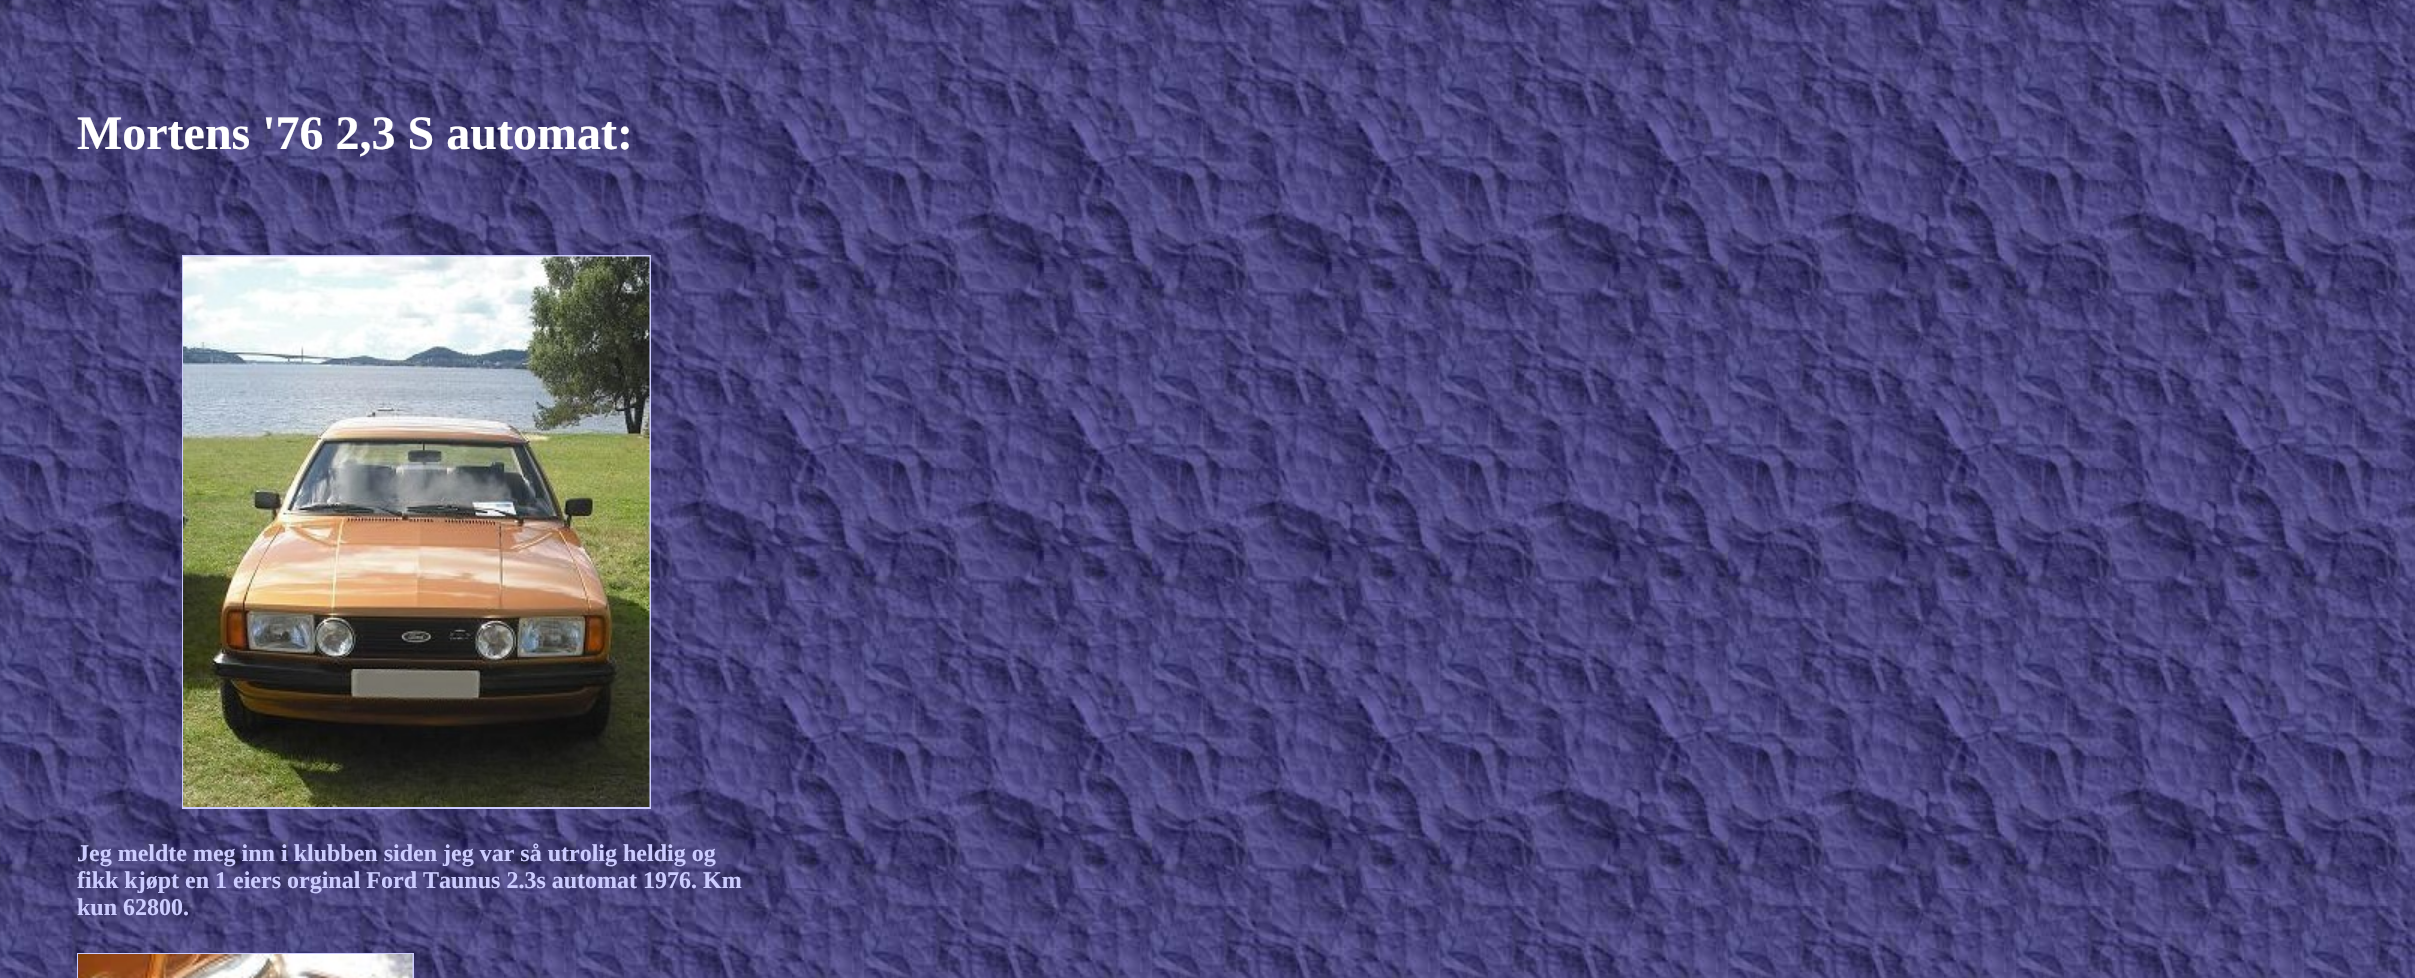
#include "include/core/SkBlurTypes.h"
#include "include/core/SkCanvas.h"
#include "include/core/SkData.h"
#include "include/core/SkFont.h"
#include "include/core/SkFontMgr.h"
#include "include/core/SkImage.h"
#include "include/core/SkMaskFilter.h"
#include "include/core/SkPaint.h"
#include "include/core/SkPathBuilder.h"
#include "include/core/SkTextBlob.h"
#include "include/effects/SkDashPathEffect.h"
#include "include/effects/SkGradientShader.h"
#include "include/utils/SkParsePath.h"

extern sk_sp<SkFontMgr> fontMgr;

void draw(SkCanvas* canvas) {
  SkPaint p;
  p.setAntiAlias(true);
  canvas->clear(SK_ColorWHITE);
  canvas->drawImageRect(SkImages::DeferredFromEncodedData(SkData::MakeFromFileName("images/1.png")), SkRect::MakeLTRB(0, 0, 2415, 978), SkSamplingOptions());
  p.setStyle(SkPaint::kStroke_Style);
  p.setStrokeWidth(2);
  p.setColor(SkColorSetRGB(204, 204, 255));
  canvas->drawRect(SkRect::MakeLTRB(183, 256, 650, 808), p);
  canvas->drawImageRect(SkImages::DeferredFromEncodedData(SkData::MakeFromFileName("images/2.png")), SkRect::MakeLTRB(183, 256, 650, 807), SkSamplingOptions());
  canvas->drawRect(SkRect::MakeLTRB(78, 954, 413, 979), p);
  canvas->drawImageRect(SkImages::DeferredFromEncodedData(SkData::MakeFromFileName("images/3.png")), SkRect::MakeLTRB(78, 954, 413, 978), SkSamplingOptions());
  SkFont font1(fontMgr->matchFamilyStyle("Liberation Serif", SkFontStyle::Bold()), 48);
  font1.setSubpixel(true);
  p.setStyle(SkPaint::kFill_Style);
  p.setColor(SK_ColorWHITE);
  canvas->drawString("Mortens '76 2,3 S automat:", 77, 149, font1, p);
  SkFont font2(fontMgr->matchFamilyStyle("Liberation Serif", SkFontStyle::Bold()), 24);
  font2.setSubpixel(true);
  p.setColor(SkColorSetRGB(204, 204, 255));
  canvas->drawString("Jeg meldte meg inn i klubben siden jeg var så utrolig heldig og", 77, 861, font2, p);
  canvas->drawString("fikk kjøpt en 1 eiers orginal Ford Taunus 2.3s automat 1976. Km", 77, 888, font2, p);
  canvas->drawString("kun 62800.", 77, 915, font2, p);
}
